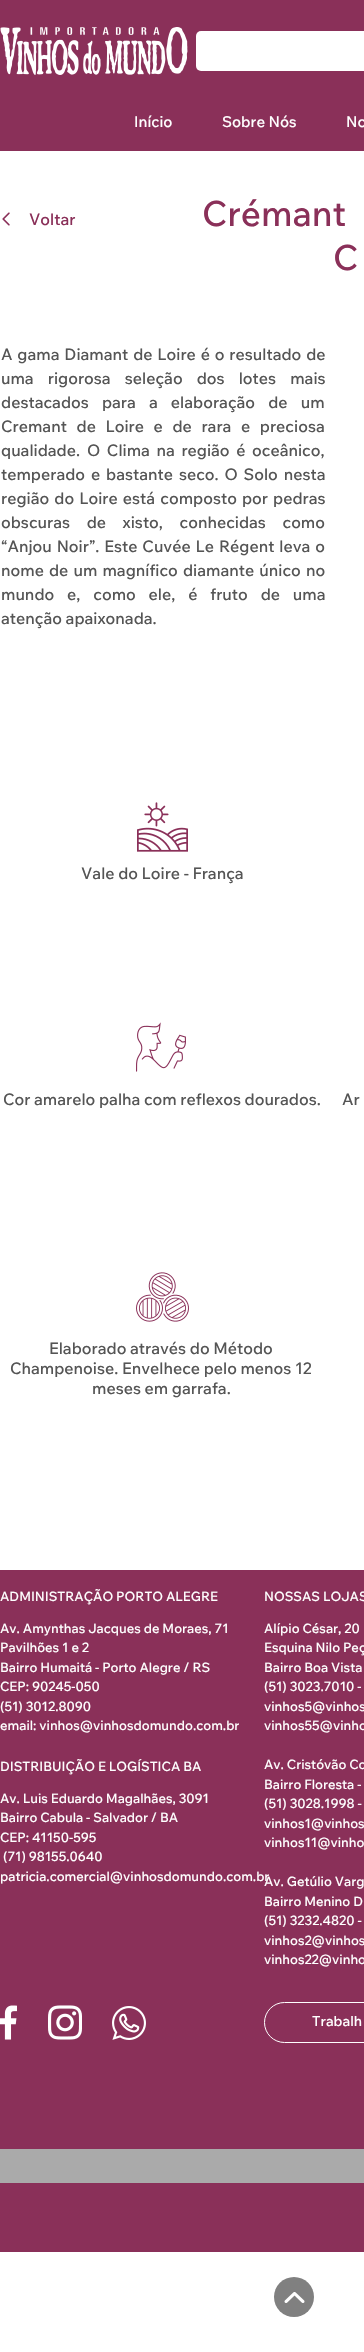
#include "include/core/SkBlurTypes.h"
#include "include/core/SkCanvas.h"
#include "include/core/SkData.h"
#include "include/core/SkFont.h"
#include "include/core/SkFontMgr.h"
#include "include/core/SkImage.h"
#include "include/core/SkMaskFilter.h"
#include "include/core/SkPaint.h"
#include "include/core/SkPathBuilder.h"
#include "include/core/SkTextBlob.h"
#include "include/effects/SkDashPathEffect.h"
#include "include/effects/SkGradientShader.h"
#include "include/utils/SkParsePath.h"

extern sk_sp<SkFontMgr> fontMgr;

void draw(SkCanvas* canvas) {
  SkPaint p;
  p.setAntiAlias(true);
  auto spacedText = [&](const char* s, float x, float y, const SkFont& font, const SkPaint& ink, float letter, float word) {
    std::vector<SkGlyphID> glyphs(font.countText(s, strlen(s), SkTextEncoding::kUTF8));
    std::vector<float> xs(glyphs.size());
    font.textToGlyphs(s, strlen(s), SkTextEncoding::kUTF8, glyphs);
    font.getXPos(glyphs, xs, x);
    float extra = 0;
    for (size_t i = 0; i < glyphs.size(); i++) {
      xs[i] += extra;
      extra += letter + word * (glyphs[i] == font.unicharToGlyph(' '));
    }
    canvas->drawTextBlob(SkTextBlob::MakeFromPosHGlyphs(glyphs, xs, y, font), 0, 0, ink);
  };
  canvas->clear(SK_ColorWHITE);
  p.setColor(SkColorSetRGB(138, 48, 89));
  canvas->drawRect(SkRect::MakeLTRB(0, 0, 364, 151), p);
  canvas->drawImageRect(SkImages::DeferredFromEncodedData(SkData::MakeFromFileName("images/1.png")), SkRect::MakeLTRB(0, 27, 188, 75), SkSamplingOptions());
  p.setColor(SK_ColorWHITE);
  canvas->drawRoundRect(SkRect::MakeLTRB(196, 31, 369, 71), 5, 5, p);
  canvas->drawImageRect(SkImages::DeferredFromEncodedData(SkData::MakeFromFileName("images/2.png")), SkRect::MakeLTRB(2, 212, 10, 226), SkSamplingOptions());
  canvas->drawImageRect(SkImages::DeferredFromEncodedData(SkData::MakeFromFileName("images/3.png")), SkRect::MakeLTRB(137, 802, 188, 852), SkSamplingOptions());
  canvas->drawImageRect(SkImages::DeferredFromEncodedData(SkData::MakeFromFileName("images/4.png")), SkRect::MakeLTRB(136, 1022, 186, 1072), SkSamplingOptions());
  canvas->drawImageRect(SkImages::DeferredFromEncodedData(SkData::MakeFromFileName("images/5.png")), SkRect::MakeLTRB(136, 1272, 189, 1322), SkSamplingOptions());
  p.setColor(SkColorSetRGB(138, 48, 89));
  canvas->drawRect(SkRect::MakeLTRB(0, 1570, 364, 2252), p);
  canvas->drawImageRect(SkImages::DeferredFromEncodedData(SkData::MakeFromFileName("images/6.png")), SkRect::MakeLTRB(0, 2005, 17, 2040), SkSamplingOptions());
  canvas->drawImageRect(SkImages::DeferredFromEncodedData(SkData::MakeFromFileName("images/7.png")), SkRect::MakeLTRB(48, 2005, 82, 2040), SkSamplingOptions());
  canvas->drawImageRect(SkImages::DeferredFromEncodedData(SkData::MakeFromFileName("images/8.png")), SkRect::MakeLTRB(112, 2006, 146, 2040), SkSamplingOptions());
  p.setStyle(SkPaint::kStroke_Style);
  p.setStrokeWidth(1);
  p.setColor(SK_ColorWHITE);
  canvas->drawRoundRect(SkRect::MakeLTRB(264.5f, 2002.5f, 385.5f, 2042.5f), 20, 20, p);
  p.setStyle(SkPaint::kFill_Style);
  p.setColor(SkColorSetRGB(170, 170, 170));
  canvas->drawRect(SkRect::MakeLTRB(0, 2149, 364, 2183), p);
  p.setColor(SkColorSetRGB(128, 128, 128));
  canvas->drawCircle(294, 2297, 20, p);
  canvas->drawImageRect(SkImages::DeferredFromEncodedData(SkData::MakeFromFileName("images/9.png")), SkRect::MakeLTRB(284, 2292, 305, 2303), SkSamplingOptions());
  SkFont font1(fontMgr->matchFamilyStyle("Wix Madefor Text", SkFontStyle(500, SkFontStyle::kNormal_Width, SkFontStyle::kUpright_Slant)), 15);
  font1.setSubpixel(true);
  p.setColor(SK_ColorWHITE);
  canvas->drawString("Início", 134, 127, font1, p);
  canvas->drawString("Sobre Nós", 222, 127, font1, p);
  canvas->drawString("No", 346, 127, font1, p);
  SkFont font2(fontMgr->matchFamilyStyle("Wix Madefor Text", SkFontStyle(500, SkFontStyle::kNormal_Width, SkFontStyle::kUpright_Slant)), 16);
  font2.setSubpixel(true);
  p.setColor(SkColorSetRGB(138, 48, 89));
  canvas->drawString("Voltar", 29, 225, font2, p);
  SkFont font3(fontMgr->matchFamilyStyle("Wix Madefor Text", SkFontStyle(500, SkFontStyle::kNormal_Width, SkFontStyle::kUpright_Slant)), 35);
  font3.setSubpixel(true);
  canvas->drawString("Crémant", 202, 226, font3, p);
  canvas->drawString("C", 333, 270, font3, p);
  p.setColor(SkColorSetRGB(85, 85, 85));
  spacedText("A gama Diamant de Loire é o resultado de", 1, 360, font2, p, 0, 1.25f);
  spacedText("uma rigorosa seleção dos lotes mais", 1, 384, font2, p, 0, 10.5f);
  spacedText("destacados para a elaboração de um", 1, 408, font2, p, 0, 9.5f);
  spacedText("Cremant de Loire e de rara e preciosa", 1, 432, font2, p, 0, 6);
  canvas->drawString("qualidade.", 1, 456, font2, p);
  spacedText("O Clima na região é oceânico,", 87, 456, font2, p, 0, 3);
  spacedText("temperado e bastante seco. O Solo nesta", 1, 480, font2, p, 0, 2.25f);
  spacedText("região do Loire está composto por pedras", 1, 504, font2, p, 0, 1.5f);
  spacedText("obscuras de xisto, conhecidas como", 1, 528, font2, p, 0, 13);
  spacedText("“Anjou Noir”. Este Cuvée Le Régent leva o", 1, 552, font2, p, 0, 1.25f);
  spacedText("nome de um magnífico diamante único no", 1, 576, font2, p, 0, 1.5f);
  spacedText("mundo e, como ele, é fruto de uma", 1, 600, font2, p, 0, 9.25f);
  canvas->drawString("atenção apaixonada.", 1, 624, font2, p);
  canvas->drawString("Vale do Loire - França", 81, 879, font2, p);
  canvas->drawString("Cor amarelo palha com reflexos dourados.", 3, 1105, font2, p);
  canvas->drawString("Ar", 342, 1105, font2, p);
  canvas->drawString("Elaborado através do Método", 49, 1354, font2, p);
  canvas->drawString("Champenoise. Envelhece pelo menos 12", 10, 1374, font2, p);
  canvas->drawString("meses em garrafa.", 92, 1394, font2, p);
  SkFont font4(fontMgr->matchFamilyStyle("Wix Madefor Text", SkFontStyle(500, SkFontStyle::kNormal_Width, SkFontStyle::kUpright_Slant)), 13);
  font4.setSubpixel(true);
  p.setColor(SK_ColorWHITE);
  canvas->drawString("ADMINISTRAÇÃO PORTO ALEGRE", 0, 1601, font4, p);
  canvas->drawString("Av. Amynthas Jacques de Moraes, 71", 0, 1633, font4, p);
  canvas->drawString("Pavilhões 1 e 2", 0, 1652, font4, p);
  canvas->drawString("Bairro Humaitá - Porto Alegre / RS", 0, 1672, font4, p);
  canvas->drawString("CEP: 90245-050", 0, 1691, font4, p);
  canvas->drawString("(51) 3012.8090", 0, 1711, font4, p);
  canvas->drawString("email: vinhos@vinhosdomundo.com.br", 0, 1730, font4, p);
  canvas->drawString("DISTRIBUIÇÃO E LOGÍSTICA BA", 0, 1771, font4, p);
  canvas->drawString("Av. Luis Eduardo Magalhães, 3091", 0, 1803, font4, p);
  canvas->drawString("Bairro Cabula - Salvador / BA", 0, 1822, font4, p);
  canvas->drawString("CEP: 41150-595", 0, 1842, font4, p);
  canvas->drawString("(71) 98155.0640", 3, 1861, font4, p);
  canvas->drawString("patricia.comercial@vinhosdomundo.com.br", 0, 1881, font4, p);
  canvas->drawString("NOSSAS LOJAS", 264, 1601, font4, p);
  canvas->drawString("Alípio César, 20", 264, 1633, font4, p);
  canvas->drawString("Esquina Nilo Peç", 264, 1652, font4, p);
  canvas->drawString("Bairro Boa Vista", 264, 1672, font4, p);
  canvas->drawString("(51) 3023.7010 -", 264, 1691, font4, p);
  canvas->drawString("vinhos5@vinhos", 264, 1711, font4, p);
  canvas->drawString("vinhos55@vinho", 264, 1730, font4, p);
  canvas->drawString("Av. Cristóvão Co", 264, 1769, font4, p);
  canvas->drawString("Bairro Floresta -", 264, 1789, font4, p);
  canvas->drawString("(51) 3028.1998 -", 264, 1808, font4, p);
  canvas->drawString("vinhos1@vinhos", 264, 1828, font4, p);
  canvas->drawString("vinhos11@vinho", 264, 1847, font4, p);
  canvas->drawString("Av. Getúlio Varg", 264, 1886, font4, p);
  canvas->drawString("Bairro Menino D", 264, 1906, font4, p);
  canvas->drawString("(51) 3232.4820 -", 264, 1925, font4, p);
  canvas->drawString("vinhos2@vinhos", 264, 1945, font4, p);
  canvas->drawString("vinhos22@vinho", 264, 1964, font4, p);
  SkFont font5(fontMgr->matchFamilyStyle("Wix Madefor Text", SkFontStyle(500, SkFontStyle::kNormal_Width, SkFontStyle::kUpright_Slant)), 14);
  font5.setSubpixel(true);
  canvas->drawString("Trabalh", 312, 2026, font5, p);
}
